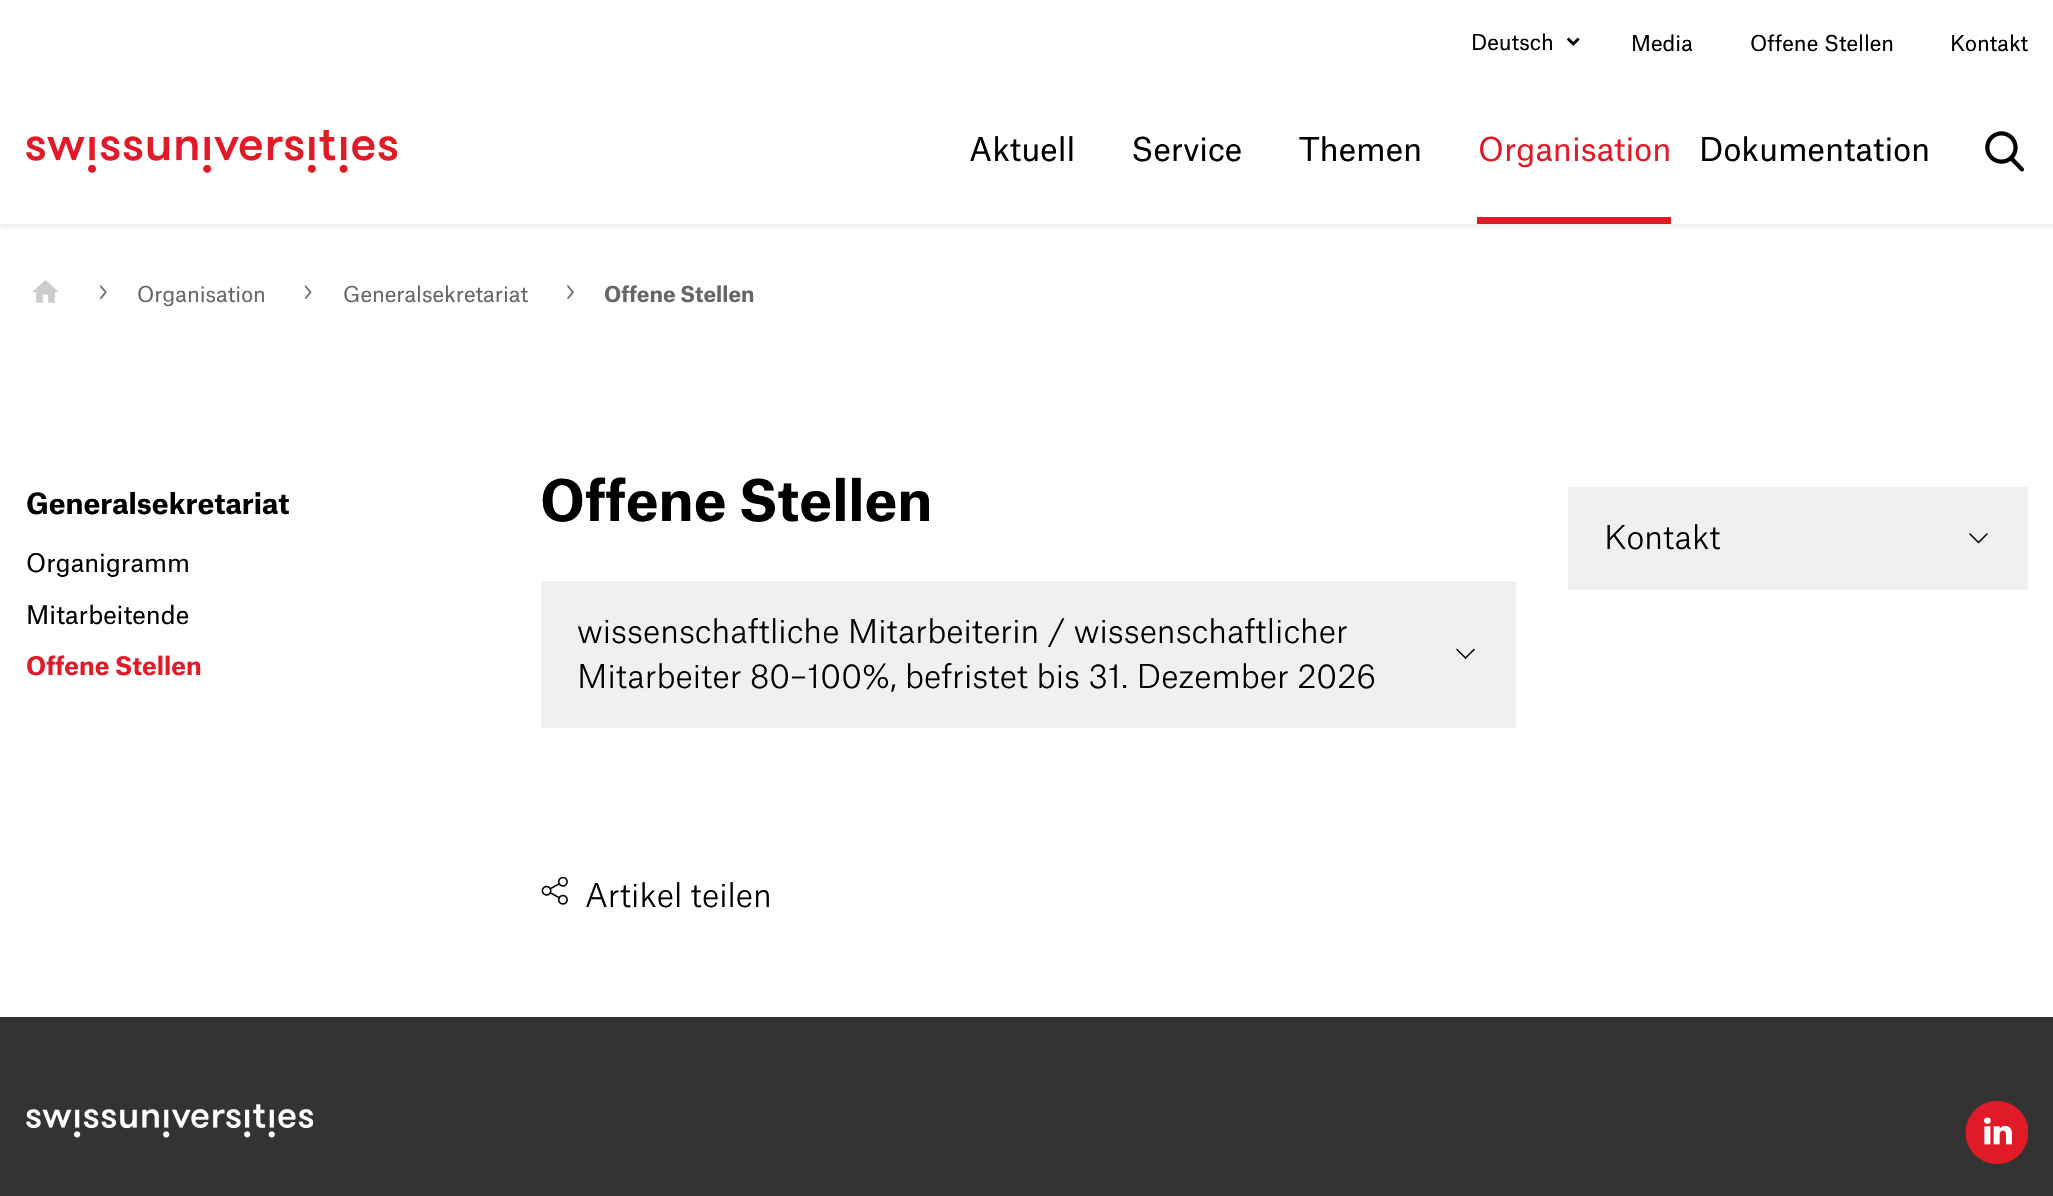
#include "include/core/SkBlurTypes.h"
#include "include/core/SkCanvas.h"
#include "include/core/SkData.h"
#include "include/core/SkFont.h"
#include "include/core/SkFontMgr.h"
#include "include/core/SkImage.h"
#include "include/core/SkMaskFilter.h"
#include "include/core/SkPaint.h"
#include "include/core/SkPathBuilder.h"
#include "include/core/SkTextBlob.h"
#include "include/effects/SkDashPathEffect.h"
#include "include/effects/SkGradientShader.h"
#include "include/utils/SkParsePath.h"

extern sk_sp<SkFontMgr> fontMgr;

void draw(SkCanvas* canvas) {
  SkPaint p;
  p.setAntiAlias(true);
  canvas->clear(SK_ColorWHITE);
  canvas->save();
  canvas->clipRect(SkRect::MakeLTRB(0, 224, 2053, 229));
  p.setColor(SkColorSetARGB(18, 0, 0, 0));
  p.setMaskFilter(SkMaskFilter::MakeBlur(kNormal_SkBlurStyle, 2.5f));
  canvas->drawRect(SkRect::MakeLTRB(0, 4, 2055, 228), p);
  p.setMaskFilter(nullptr);
  canvas->restore();
  canvas->drawImageRect(SkImages::DeferredFromEncodedData(SkData::MakeFromFileName("images/1.png")), SkRect::MakeLTRB(1567, 37, 1580, 46), SkSamplingOptions());
  canvas->drawImageRect(SkImages::DeferredFromEncodedData(SkData::MakeFromFileName("images/2.png")), SkRect::MakeLTRB(26, 130, 397, 173), SkSamplingOptions());
  p.setColor(SkColorSetRGB(225, 26, 39));
  canvas->drawRect(SkRect::MakeLTRB(1477, 217, 1671, 224), p);
  canvas->drawImageRect(SkImages::DeferredFromEncodedData(SkData::MakeFromFileName("images/3.png")), SkRect::MakeLTRB(1985, 131, 2024, 172), SkSamplingOptions());
  canvas->drawImageRect(SkImages::DeferredFromEncodedData(SkData::MakeFromFileName("images/4.png")), SkRect::MakeLTRB(32, 280, 59, 303), SkSamplingOptions());
  canvas->drawImageRect(SkImages::DeferredFromEncodedData(SkData::MakeFromFileName("images/5.png")), SkRect::MakeLTRB(100, 285, 107, 299), SkSamplingOptions());
  canvas->drawImageRect(SkImages::DeferredFromEncodedData(SkData::MakeFromFileName("images/6.png")), SkRect::MakeLTRB(305, 285, 312, 299), SkSamplingOptions());
  canvas->drawImageRect(SkImages::DeferredFromEncodedData(SkData::MakeFromFileName("images/7.png")), SkRect::MakeLTRB(567, 285, 574, 299), SkSamplingOptions());
  p.setColor(SkColorSetRGB(239, 240, 242));
  canvas->drawRect(SkRect::MakeLTRB(541, 581, 1516, 728), p);
  p.setStyle(SkPaint::kStroke_Style);
  p.setStrokeWidth(1.5f);
  p.setStrokeCap(SkPaint::kRound_Cap);
  p.setColor(SK_ColorBLACK);
  canvas->drawPath(SkPathBuilder().moveTo(1457, 649.5f).lineTo(1465.5f, 658).moveTo(1474, 649.5f).lineTo(1465.5f, 658).detach(), p);
  canvas->drawImageRect(SkImages::DeferredFromEncodedData(SkData::MakeFromFileName("images/8.png")), SkRect::MakeLTRB(541, 877, 568, 905), SkSamplingOptions());
  p.setStyle(SkPaint::kFill_Style);
  p.setColor(SkColorSetRGB(239, 240, 242));
  canvas->drawRect(SkRect::MakeLTRB(1568, 487, 2028, 590), p);
  p.setStyle(SkPaint::kStroke_Style);
  p.setColor(SK_ColorBLACK);
  canvas->drawPath(SkPathBuilder().moveTo(1970, 534).lineTo(1978.5f, 542.5f).moveTo(1987, 534).lineTo(1978.5f, 542.5f).detach(), p);
  p.setStyle(SkPaint::kFill_Style);
  p.setColor(SkColorSetRGB(51, 51, 51));
  canvas->drawRect(SkRect::MakeLTRB(0, 1017, 2053, 1196), p);
  canvas->drawImageRect(SkImages::DeferredFromEncodedData(SkData::MakeFromFileName("images/9.png")), SkRect::MakeLTRB(26, 1104, 313, 1138), SkSamplingOptions());
  canvas->drawImageRect(SkImages::DeferredFromEncodedData(SkData::MakeFromFileName("images/10.png")), SkRect::MakeLTRB(1965, 1101, 2028, 1164), SkSamplingOptions());
  SkFont font1(fontMgr->matchFamilyStyle("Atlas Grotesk", SkFontStyle::Normal()), 21);
  font1.setSubpixel(true);
  p.setColor(SK_ColorBLACK);
  canvas->drawString("Deutsch", 1471, 50, font1, p);
  canvas->drawString("Media", 1631, 51, font1, p);
  canvas->drawString("Offene Stellen", 1750, 51, font1, p);
  canvas->drawString("Kontakt", 1950, 51, font1, p);
  SkFont font2(fontMgr->matchFamilyStyle("Atlas Grotesk", SkFontStyle::Normal()), 31.5f);
  font2.setSubpixel(true);
  canvas->drawString("Aktuell", 969, 161, font2, p);
  canvas->drawString("Service", 1131, 161, font2, p);
  canvas->drawString("Themen", 1299, 161, font2, p);
  p.setColor(SkColorSetRGB(225, 26, 39));
  canvas->drawString("Organisation", 1478, 161, font2, p);
  p.setColor(SK_ColorBLACK);
  canvas->drawString("Dokumentation", 1699, 161, font2, p);
  p.setColor(SkColorSetRGB(102, 102, 102));
  canvas->drawString("Organisation", 137, 302, font1, p);
  canvas->drawString("Generalsekretariat", 343, 302, font1, p);
  SkFont font3(fontMgr->matchFamilyStyle("Atlas Grotesk", SkFontStyle::Bold()), 21);
  font3.setSubpixel(true);
  canvas->drawString("Offene Stellen", 604, 302, font3, p);
  SkFont font4(fontMgr->matchFamilyStyle("Atlas Grotesk", SkFontStyle::Bold()), 28);
  font4.setSubpixel(true);
  p.setColor(SK_ColorBLACK);
  canvas->drawString("Generalsekretariat", 26, 514, font4, p);
  SkFont font5(fontMgr->matchFamilyStyle("Atlas Grotesk", SkFontStyle::Normal()), 24.5f);
  font5.setSubpixel(true);
  canvas->drawString("Organigramm", 26, 572, font5, p);
  canvas->drawString("Mitarbeitende", 26, 624, font5, p);
  SkFont font6(fontMgr->matchFamilyStyle("Atlas Grotesk", SkFontStyle::Bold()), 24.5f);
  font6.setSubpixel(true);
  p.setColor(SkColorSetRGB(225, 26, 39));
  canvas->drawString("Offene Stellen", 26, 675, font6, p);
  SkFont font7(fontMgr->matchFamilyStyle("Atlas Grotesk", SkFontStyle::Bold()), 54.75f);
  font7.setSubpixel(true);
  p.setColor(SK_ColorBLACK);
  canvas->drawString("Offene Stellen", 540, 521, font7, p);
  SkFont font8(fontMgr->matchFamilyStyle("Atlas Grotesk", SkFontStyle(300, SkFontStyle::kNormal_Width, SkFontStyle::kUpright_Slant)), 31.5f);
  font8.setSubpixel(true);
  canvas->drawString("wissenschaftliche Mitarbeiterin / wissenschaftlicher", 577, 643, font8, p);
  canvas->drawString("Mitarbeiter 80–100%, befristet bis 31. Dezember 2026", 577, 688, font8, p);
  canvas->drawString("Artikel teilen", 585, 907, font8, p);
  canvas->drawString("Kontakt", 1604, 549, font8, p);
}
